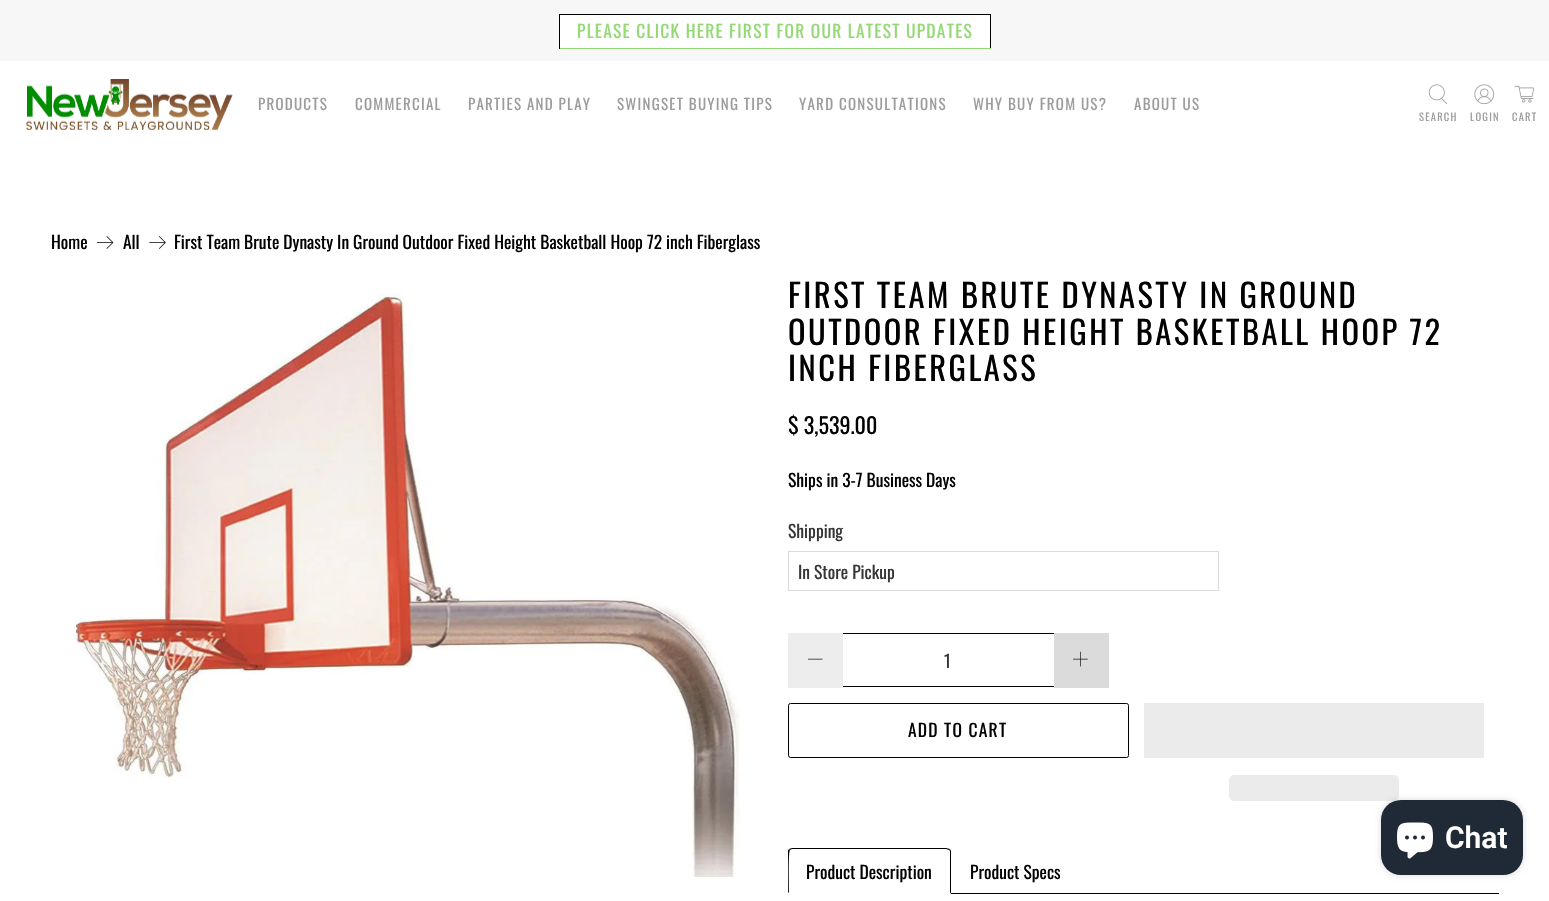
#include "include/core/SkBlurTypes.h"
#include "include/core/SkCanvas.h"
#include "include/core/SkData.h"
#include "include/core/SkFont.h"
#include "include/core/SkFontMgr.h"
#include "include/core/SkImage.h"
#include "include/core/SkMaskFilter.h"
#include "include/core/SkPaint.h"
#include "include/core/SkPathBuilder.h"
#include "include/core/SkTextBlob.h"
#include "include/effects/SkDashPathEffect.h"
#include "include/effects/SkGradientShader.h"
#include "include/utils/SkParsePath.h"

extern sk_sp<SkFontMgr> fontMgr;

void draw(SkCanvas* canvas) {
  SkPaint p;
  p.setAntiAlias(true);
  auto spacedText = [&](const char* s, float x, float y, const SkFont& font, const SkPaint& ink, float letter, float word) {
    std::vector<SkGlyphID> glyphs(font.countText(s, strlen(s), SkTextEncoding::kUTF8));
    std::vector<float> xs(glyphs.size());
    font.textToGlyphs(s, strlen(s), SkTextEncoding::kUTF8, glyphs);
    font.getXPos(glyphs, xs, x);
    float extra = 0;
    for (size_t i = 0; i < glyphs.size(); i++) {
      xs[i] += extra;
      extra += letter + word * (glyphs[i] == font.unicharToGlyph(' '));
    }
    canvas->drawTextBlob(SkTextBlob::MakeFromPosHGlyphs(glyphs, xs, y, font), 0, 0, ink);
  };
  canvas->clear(SK_ColorWHITE);
  p.setColor(SkColorSetRGB(247, 247, 247));
  canvas->drawRect(SkRect::MakeLTRB(0, 0, 1549, 61), p);
  p.setColor(SK_ColorWHITE);
  canvas->drawRect(SkRect::MakeLTRB(560, 15, 990, 48), p);
  p.setColor(SK_ColorBLACK);
  canvas->drawRect(SkRect::MakeLTRB(559, 14, 991, 15), p);
  canvas->drawRect(SkRect::MakeLTRB(990, 14, 991, 49), p);
  p.setColor(SkColorSetRGB(148, 217, 118));
  canvas->drawRect(SkRect::MakeLTRB(559, 48, 991, 49), p);
  p.setColor(SK_ColorBLACK);
  canvas->drawRect(SkRect::MakeLTRB(559, 14, 560, 49), p);
  canvas->drawImageRect(SkImages::DeferredFromEncodedData(SkData::MakeFromFileName("images/1.png")), SkRect::MakeLTRB(26, 79, 233, 130), SkSamplingOptions());
  canvas->drawImageRect(SkImages::DeferredFromEncodedData(SkData::MakeFromFileName("images/2.png")), SkRect::MakeLTRB(1428, 84, 1448, 104), SkSamplingOptions());
  canvas->drawImageRect(SkImages::DeferredFromEncodedData(SkData::MakeFromFileName("images/3.png")), SkRect::MakeLTRB(1474, 84, 1495, 105), SkSamplingOptions());
  canvas->drawImageRect(SkImages::DeferredFromEncodedData(SkData::MakeFromFileName("images/4.png")), SkRect::MakeLTRB(1514, 85, 1535, 103), SkSamplingOptions());
  canvas->drawImageRect(SkImages::DeferredFromEncodedData(SkData::MakeFromFileName("images/5.png")), SkRect::MakeLTRB(96, 236, 114, 249), SkSamplingOptions());
  canvas->drawImageRect(SkImages::DeferredFromEncodedData(SkData::MakeFromFileName("images/6.png")), SkRect::MakeLTRB(149, 236, 166, 249), SkSamplingOptions());
  canvas->drawImageRect(SkImages::DeferredFromEncodedData(SkData::MakeFromFileName("images/7.png")), SkRect::MakeLTRB(74, 293, 740, 877), SkSamplingOptions());
  p.setStyle(SkPaint::kStroke_Style);
  p.setStrokeWidth(1);
  p.setColor(SkColorSetRGB(219, 219, 219));
  canvas->drawRect(SkRect::MakeLTRB(788.5f, 551.5f, 1218.5f, 590.5f), p);
  p.setStyle(SkPaint::kFill_Style);
  p.setColor(SkColorSetRGB(237, 237, 237));
  canvas->drawRect(SkRect::MakeLTRB(788, 633, 843, 688), p);
  canvas->drawImageRect(SkImages::DeferredFromEncodedData(SkData::MakeFromFileName("images/8.png")), SkRect::MakeLTRB(808, 658, 823, 660), SkSamplingOptions());
  p.setColor(SK_ColorBLACK);
  canvas->drawRect(SkRect::MakeLTRB(843, 633, 1054, 634), p);
  canvas->drawRect(SkRect::MakeLTRB(843, 686, 1054, 687), p);
  p.setColor(SkColorSetRGB(219, 219, 219));
  canvas->drawRect(SkRect::MakeLTRB(1054, 633, 1109, 688), p);
  canvas->drawImageRect(SkImages::DeferredFromEncodedData(SkData::MakeFromFileName("images/9.png")), SkRect::MakeLTRB(1073, 651, 1088, 667), SkSamplingOptions());
  p.setStyle(SkPaint::kStroke_Style);
  p.setColor(SK_ColorBLACK);
  canvas->drawRoundRect(SkRect::MakeLTRB(788.5f, 703.5f, 1128.5f, 757.5f), 2, 2, p);
  p.setStyle(SkPaint::kFill_Style);
  p.setColor(SkColorSetRGB(235, 235, 235));
  canvas->drawRect(SkRect::MakeLTRB(1144, 703, 1484, 758), p);
  canvas->drawRoundRect(SkRect::MakeLTRB(1229, 775, 1399, 801), 5, 5, p);
  p.setColor(SK_ColorBLACK);
  canvas->drawRect(SkRect::MakeLTRB(951, 893, 1499, 894), p);
  canvas->drawPath(SkPathBuilder().moveTo(792, 848).lineTo(789, 849).lineTo(790, 850).lineTo(792, 849).lineTo(946, 849).lineTo(949, 850).lineTo(950, 849).lineTo(946, 848).close().detach(), p);
  canvas->drawPath(SkPathBuilder().moveTo(951, 894).lineTo(951, 851).lineTo(950, 849).lineTo(949, 850).lineTo(950, 851).lineTo(950, 892).close().detach(), p);
  canvas->drawPath(SkPathBuilder().moveTo(789, 849).cubicTo(788, 850, 788, 851, 788, 852).lineTo(788, 893).lineTo(789, 892).cubicTo(789, 887, 788, 852, 790, 850).close().detach(), p);
  p.setColor(SkColorSetARGB(38, 0, 0, 0));
  p.setMaskFilter(SkMaskFilter::MakeBlur(kNormal_SkBlurStyle, 3));
  canvas->drawRoundRect(SkRect::MakeLTRB(1381, 800, 1523, 875), 20, 20, p);
  p.setMaskFilter(nullptr);
  p.setColor(SkColorSetRGB(32, 42, 54));
  canvas->drawRoundRect(SkRect::MakeLTRB(1381, 800, 1523, 875), 20, 20, p);
  canvas->drawImageRect(SkImages::DeferredFromEncodedData(SkData::MakeFromFileName("images/10.png")), SkRect::MakeLTRB(1397, 822, 1433, 859), SkSamplingOptions());
  SkFont font1(fontMgr->matchFamilyStyle("Oswald", SkFontStyle::Normal()), 17.5f);
  font1.setSubpixel(true);
  p.setColor(SkColorSetRGB(148, 217, 118));
  spacedText("PLEASE CLICK HERE FIRST FOR OUR LATEST UPDATES", 577, 38, font1, p, 1.25f, 0);
  SkFont font2(fontMgr->matchFamilyStyle("Oswald", SkFontStyle::Normal()), 15);
  font2.setSubpixel(true);
  p.setColor(SkColorSetRGB(156, 156, 156));
  spacedText("PRODUCTS", 258, 110, font2, p, 1.25f, 0);
  spacedText("COMMERCIAL", 355, 110, font2, p, 1.25f, 0);
  spacedText("PARTIES AND PLAY", 468, 110, font2, p, 1.25f, 0);
  spacedText("SWINGSET BUYING TIPS", 617, 110, font2, p, 1.25f, 0);
  spacedText("YARD CONSULTATIONS", 799, 110, font2, p, 1.25f, 0);
  spacedText("WHY BUY FROM US?", 973, 110, font2, p, 1.25f, 0);
  spacedText("ABOUT US", 1134, 110, font2, p, 1.25f, 0);
  SkFont font3(fontMgr->matchFamilyStyle("Oswald", SkFontStyle::Normal()), 10.5f);
  font3.setSubpixel(true);
  spacedText("SEARCH", 1419, 121, font3, p, 1.25f, 0);
  spacedText("LOGIN", 1470, 121, font3, p, 1.25f, 0);
  spacedText("CART", 1512, 121, font3, p, 1.25f, 0);
  p.setColor(SK_ColorBLACK);
  canvas->drawString("Home", 51, 249, font1, p);
  canvas->drawString("All", 123, 249, font1, p);
  canvas->drawString("First Team Brute Dynasty In Ground Outdoor Fixed Height Basketball Hoop 72 inch Fiberglass", 174, 249, font1, p);
  SkFont font4(fontMgr->matchFamilyStyle("Oswald", SkFontStyle::Normal()), 32.5f);
  font4.setSubpixel(true);
  spacedText("FIRST TEAM BRUTE DYNASTY IN GROUND", 788, 308, font4, p, 2.5f, 0);
  spacedText("OUTDOOR FIXED HEIGHT BASKETBALL HOOP 72", 788, 345, font4, p, 2.5f, 0);
  spacedText("INCH FIBERGLASS", 788, 381, font4, p, 2.5f, 0);
  SkFont font5(fontMgr->matchFamilyStyle("Oswald", SkFontStyle::Normal()), 22);
  font5.setSubpixel(true);
  canvas->drawString("$ 3,539.00", 788, 434, font5, p);
  canvas->drawString("Ships in 3-7 Business Days", 788, 487, font1, p);
  p.setColor(SkColorSetRGB(54, 54, 54));
  canvas->drawString("Shipping", 788, 538, font1, p);
  canvas->drawString("In Store Pickup", 798, 579, font1, p);
  canvas->drawString("1", 944, 668, font1, p);
  p.setColor(SK_ColorBLACK);
  spacedText("ADD TO CART", 908, 737, font1, p, 1.25f, 0);
  canvas->drawString("Product Description", 806, 879, font1, p);
  canvas->drawString("Product Specs", 970, 879, font1, p);
  SkFont font6(fontMgr->matchFamilyStyle("Roboto", SkFontStyle(600, SkFontStyle::kNormal_Width, SkFontStyle::kUpright_Slant)), 30);
  font6.setSubpixel(true);
  p.setColor(SK_ColorWHITE);
  canvas->drawString("Chat", 1445, 848, font6, p);
}
